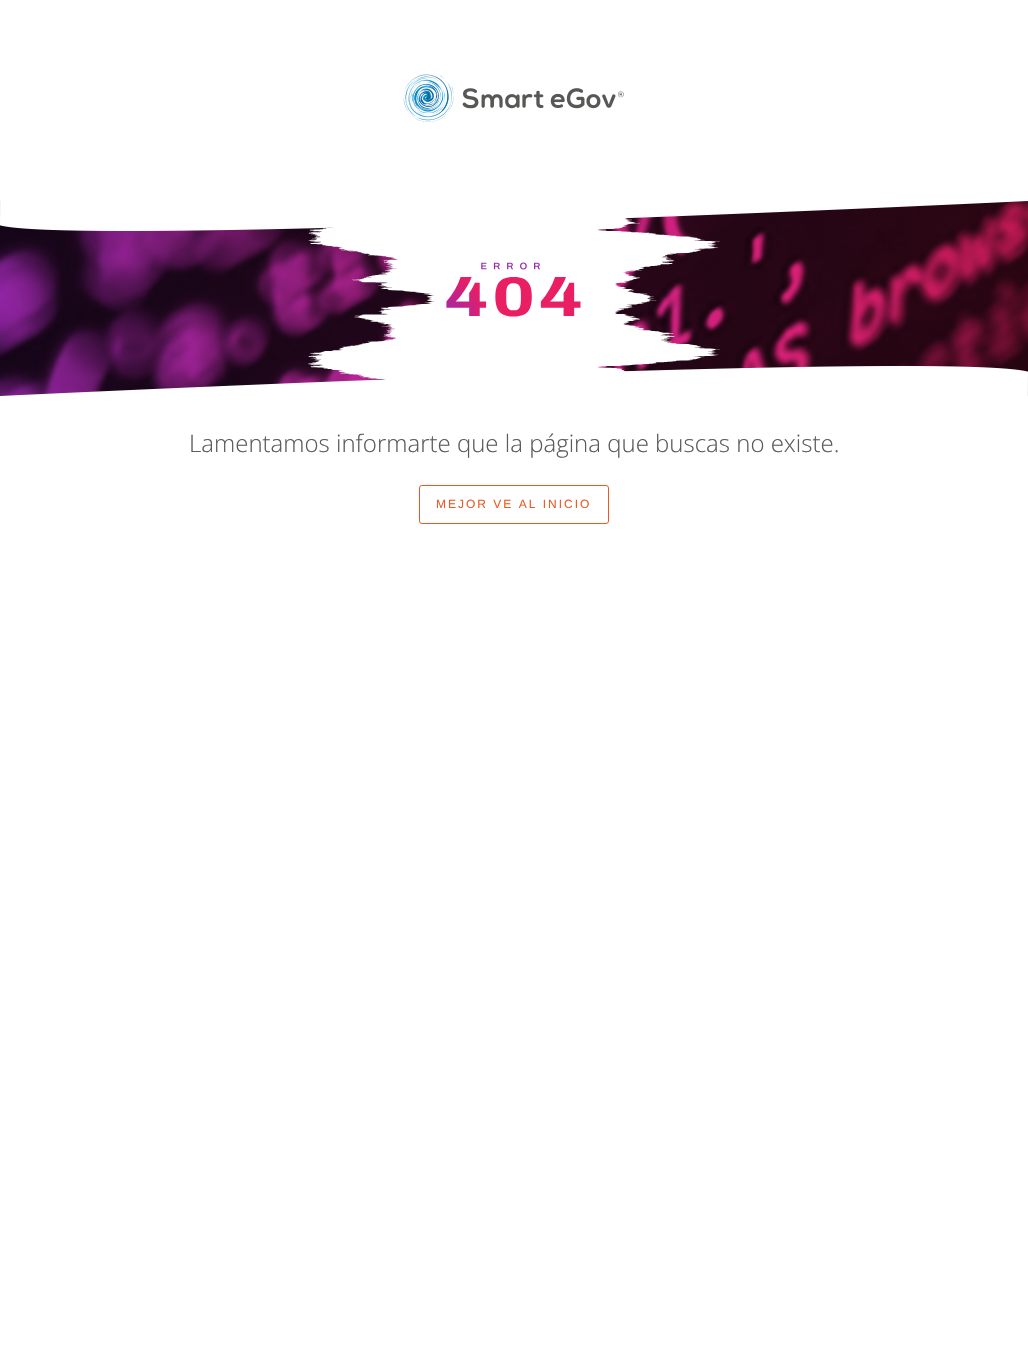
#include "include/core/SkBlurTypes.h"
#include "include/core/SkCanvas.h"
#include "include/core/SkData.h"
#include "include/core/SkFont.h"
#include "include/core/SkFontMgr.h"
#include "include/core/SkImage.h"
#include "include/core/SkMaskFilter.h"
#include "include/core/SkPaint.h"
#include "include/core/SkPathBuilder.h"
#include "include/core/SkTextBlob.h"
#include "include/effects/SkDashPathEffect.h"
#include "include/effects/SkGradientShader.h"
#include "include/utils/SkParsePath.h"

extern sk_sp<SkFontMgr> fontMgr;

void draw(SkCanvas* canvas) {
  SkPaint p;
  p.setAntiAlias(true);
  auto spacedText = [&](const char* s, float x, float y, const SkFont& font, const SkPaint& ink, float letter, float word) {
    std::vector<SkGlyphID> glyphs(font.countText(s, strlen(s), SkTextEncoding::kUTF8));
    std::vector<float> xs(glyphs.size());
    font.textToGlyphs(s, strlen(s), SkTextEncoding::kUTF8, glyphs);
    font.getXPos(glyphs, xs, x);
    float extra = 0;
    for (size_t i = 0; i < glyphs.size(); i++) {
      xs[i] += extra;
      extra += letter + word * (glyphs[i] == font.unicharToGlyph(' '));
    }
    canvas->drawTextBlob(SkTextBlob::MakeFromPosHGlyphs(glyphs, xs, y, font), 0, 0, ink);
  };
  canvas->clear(SK_ColorWHITE);
  canvas->drawImageRect(SkImages::DeferredFromEncodedData(SkData::MakeFromFileName("images/1.png")), SkRect::MakeLTRB(403, 74, 624, 122), SkSamplingOptions());
  canvas->drawImageRect(SkImages::DeferredFromEncodedData(SkData::MakeFromFileName("images/2.png")), SkRect::MakeLTRB(0, 201, 1028, 396), SkSamplingOptions());
  canvas->drawImageRect(SkImages::DeferredFromEncodedData(SkData::MakeFromFileName("images/4.png")), SkRect::MakeLTRB(308, 218, 720, 380), SkSamplingOptions());
  canvas->drawImageRect(SkImages::DeferredFromEncodedData(SkData::MakeFromFileName("images/3.png")), SkRect::MakeLTRB(0, 201, 1028, 231), SkSamplingOptions());
  canvas->drawImageRect(SkImages::DeferredFromEncodedData(SkData::MakeFromFileName("images/5.png")), SkRect::MakeLTRB(1, 366, 1028, 396), SkSamplingOptions());
  p.setStyle(SkPaint::kStroke_Style);
  p.setStrokeWidth(1);
  p.setColor(SkColorSetRGB(235, 91, 37));
  canvas->drawRoundRect(SkRect::MakeLTRB(419.5f, 485.5f, 608.5f, 523.5f), 2.5f, 2.5f, p);
  SkFont font1(fontMgr->matchFamilyStyle("Open Sans", SkFontStyle(300, SkFontStyle::kNormal_Width, SkFontStyle::kUpright_Slant)), 24);
  font1.setSubpixel(true);
  p.setStyle(SkPaint::kFill_Style);
  p.setColor(SkColorSetRGB(91, 91, 95));
  canvas->drawString("Lamentamos informarte que la página que buscas no existe.", 189, 452, font1, p);
  SkFont font2(fontMgr->matchFamilyStyle("Liberation Sans", SkFontStyle::Normal()), 12);
  font2.setSubpixel(true);
  p.setColor(SkColorSetRGB(235, 91, 37));
  spacedText("MEJOR VE AL INICIO", 436, 508, font2, p, 2, 0);
}
